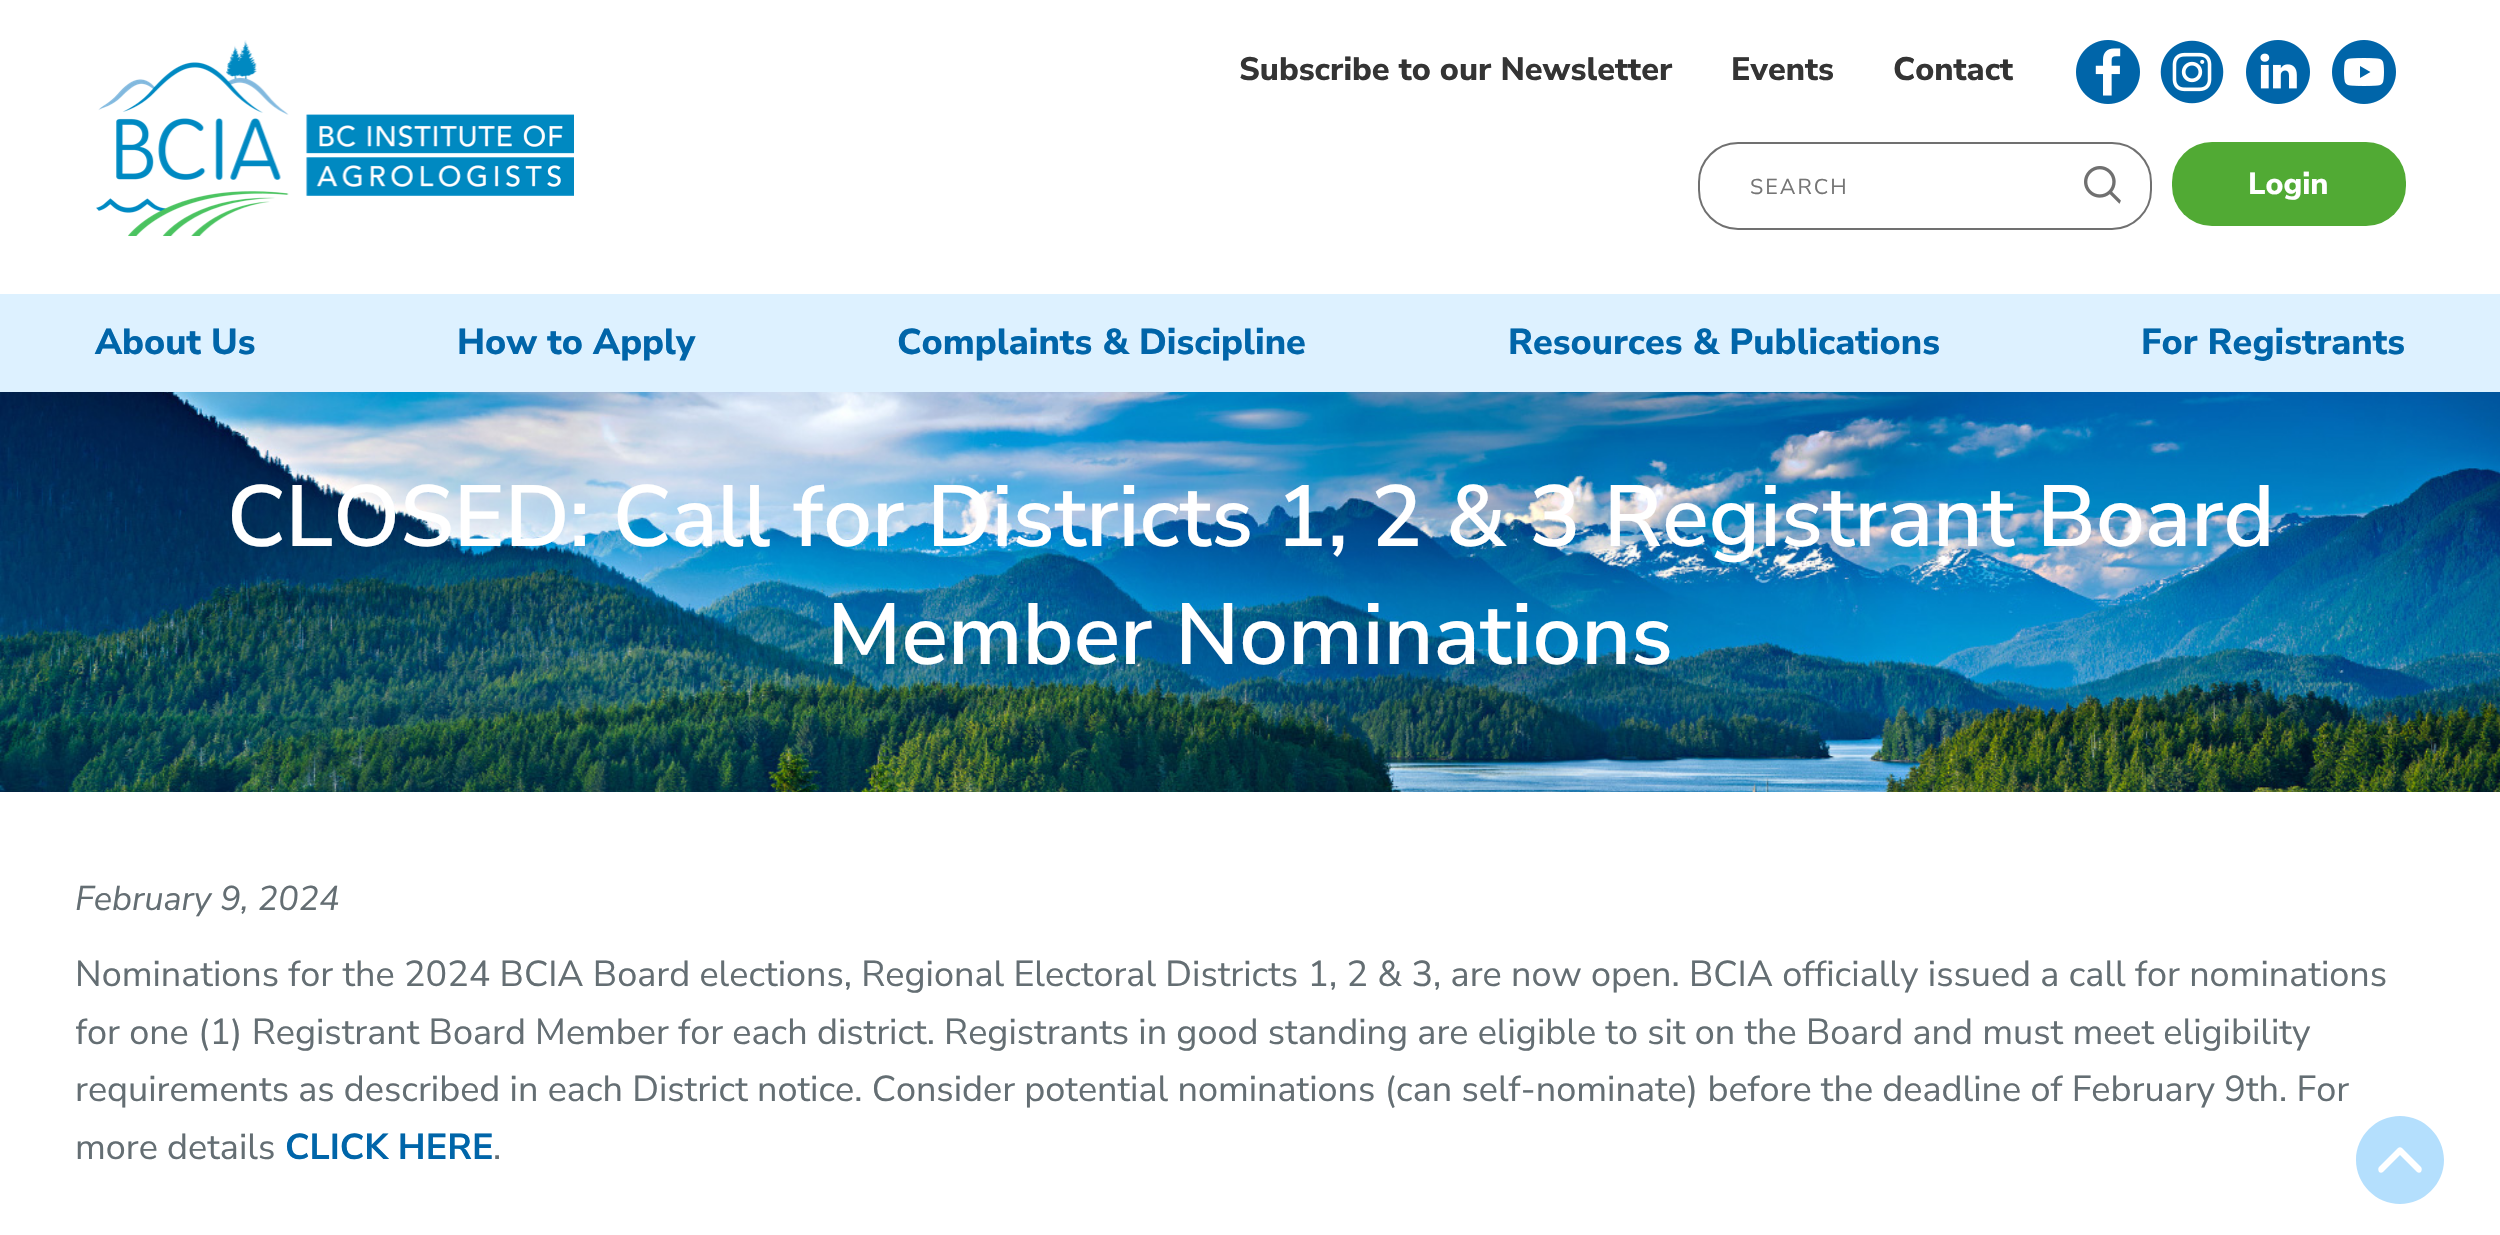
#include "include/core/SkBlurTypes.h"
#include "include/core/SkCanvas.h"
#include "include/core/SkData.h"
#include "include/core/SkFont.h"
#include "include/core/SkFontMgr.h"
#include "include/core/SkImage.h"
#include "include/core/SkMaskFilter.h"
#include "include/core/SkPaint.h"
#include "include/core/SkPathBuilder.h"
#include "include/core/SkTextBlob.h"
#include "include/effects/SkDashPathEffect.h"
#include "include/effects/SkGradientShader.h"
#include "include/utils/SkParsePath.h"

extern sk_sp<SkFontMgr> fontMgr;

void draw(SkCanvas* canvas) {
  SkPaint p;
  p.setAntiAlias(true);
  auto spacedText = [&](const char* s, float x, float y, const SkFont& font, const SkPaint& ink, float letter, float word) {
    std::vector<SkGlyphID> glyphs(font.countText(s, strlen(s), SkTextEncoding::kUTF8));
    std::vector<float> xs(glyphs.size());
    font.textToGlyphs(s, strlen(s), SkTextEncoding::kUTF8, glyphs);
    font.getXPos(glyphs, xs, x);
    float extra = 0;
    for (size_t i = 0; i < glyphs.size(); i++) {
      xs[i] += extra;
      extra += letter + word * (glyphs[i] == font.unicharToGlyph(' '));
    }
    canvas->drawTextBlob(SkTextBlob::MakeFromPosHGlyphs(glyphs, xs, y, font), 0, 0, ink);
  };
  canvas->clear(SK_ColorWHITE);
  canvas->drawImageRect(SkImages::DeferredFromEncodedData(SkData::MakeFromFileName("images/1.png")), SkRect::MakeLTRB(96, 40, 574, 236), SkSamplingOptions());
  canvas->drawImageRect(SkImages::DeferredFromEncodedData(SkData::MakeFromFileName("images/2.png")), SkRect::MakeLTRB(2076, 40, 2140, 104), SkSamplingOptions());
  canvas->drawImageRect(SkImages::DeferredFromEncodedData(SkData::MakeFromFileName("images/3.png")), SkRect::MakeLTRB(2160, 40, 2224, 104), SkSamplingOptions());
  canvas->drawImageRect(SkImages::DeferredFromEncodedData(SkData::MakeFromFileName("images/4.png")), SkRect::MakeLTRB(2246, 40, 2310, 104), SkSamplingOptions());
  canvas->drawImageRect(SkImages::DeferredFromEncodedData(SkData::MakeFromFileName("images/5.png")), SkRect::MakeLTRB(2332, 40, 2396, 104), SkSamplingOptions());
  p.setStyle(SkPaint::kStroke_Style);
  p.setStrokeWidth(2);
  p.setColor(SkColorSetRGB(112, 112, 112));
  canvas->drawRoundRect(SkRect::MakeLTRB(1699, 143, 2151, 229), 39, 39, p);
  canvas->drawImageRect(SkImages::DeferredFromEncodedData(SkData::MakeFromFileName("images/6.png")), SkRect::MakeLTRB(2084, 166, 2121, 204), SkSamplingOptions());
  p.setStyle(SkPaint::kFill_Style);
  p.setColor(SkColorSetRGB(81, 170, 52));
  canvas->drawRoundRect(SkRect::MakeLTRB(2172, 142, 2406, 226), 40, 40, p);
  p.setColor(SkColorSetRGB(221, 241, 255));
  canvas->drawRect(SkRect::MakeLTRB(0, 294, 2500, 392), p);
  canvas->drawImageRect(SkImages::DeferredFromEncodedData(SkData::MakeFromFileName("images/7.png")), SkRect::MakeLTRB(0, 392, 2500, 792), SkSamplingOptions());
  p.setColor(SkColorSetRGB(180, 223, 253));
  canvas->drawPath(SkPathBuilder().moveTo(2400, 1116).cubicTo(2376, 1116, 2356, 1136, 2356, 1160).cubicTo(2356, 1184, 2376, 1204, 2400, 1204).cubicTo(2424, 1204, 2444, 1184, 2444, 1160).cubicTo(2444, 1136, 2424, 1116, 2400, 1116).close().moveTo(2421, 1172).cubicTo(2420, 1173, 2418, 1173, 2417, 1172).lineTo(2400, 1155).lineTo(2383, 1172).cubicTo(2382, 1173, 2380, 1173, 2379, 1172).cubicTo(2378, 1170, 2378, 1168, 2379, 1167).lineTo(2398, 1148).cubicTo(2399, 1147, 2401, 1147, 2402, 1148).lineTo(2421, 1167).cubicTo(2422, 1168, 2422, 1170, 2421, 1172).close().detach(), p);
  SkFont font1(fontMgr->matchFamilyStyle("Nunito Sans", SkFontStyle(800, SkFontStyle::kNormal_Width, SkFontStyle::kUpright_Slant)), 32.4f);
  font1.setSubpixel(true);
  p.setColor(SkColorSetRGB(52, 52, 52));
  canvas->drawString("Subscribe to our Newsletter", 1239, 80, font1, p);
  canvas->drawString("Events", 1731, 80, font1, p);
  canvas->drawString("Contact", 1893, 80, font1, p);
  SkFont font2(fontMgr->matchFamilyStyle("Nunito Sans", SkFontStyle::Normal()), 21.5f);
  font2.setSubpixel(true);
  p.setColor(SkColorSetRGB(117, 117, 117));
  spacedText("SEARCH", 1750, 194, font2, p, 2, 0);
  SkFont font3(fontMgr->matchFamilyStyle("Nunito Sans", SkFontStyle(800, SkFontStyle::kNormal_Width, SkFontStyle::kUpright_Slant)), 30.5f);
  font3.setSubpixel(true);
  p.setColor(SK_ColorWHITE);
  canvas->drawString("Login", 2248, 194, font3, p);
  SkFont font4(fontMgr->matchFamilyStyle("Nunito Sans", SkFontStyle(800, SkFontStyle::kNormal_Width, SkFontStyle::kUpright_Slant)), 36);
  font4.setSubpixel(true);
  p.setColor(SkColorSetRGB(0, 101, 169));
  canvas->drawString("About Us", 95, 354, font4, p);
  canvas->drawString("How to Apply", 457, 354, font4, p);
  canvas->drawString("Complaints & Discipline", 897, 354, font4, p);
  canvas->drawString("Resources & Publications", 1508, 354, font4, p);
  canvas->drawString("For Registrants", 2141, 354, font4, p);
  SkFont font5(fontMgr->matchFamilyStyle("Nunito Sans", SkFontStyle(600, SkFontStyle::kNormal_Width, SkFontStyle::kUpright_Slant)), 86.4f);
  font5.setSubpixel(true);
  p.setColor(SK_ColorWHITE);
  canvas->drawString("CLOSED: Call for Districts 1, 2 & 3 Registrant Board", 227, 546, font5, p);
  canvas->drawString("Member Nominations", 827, 664, font5, p);
  SkFont font6(fontMgr->matchFamilyStyle("Nunito Sans", SkFontStyle::Italic()), 34.25f);
  font6.setSubpixel(true);
  p.setColor(SkColorSetRGB(100, 110, 115));
  canvas->drawString("February 9, 2024", 75, 910, font6, p);
  SkFont font7(fontMgr->matchFamilyStyle("Nunito Sans", SkFontStyle::Normal()), 36);
  font7.setSubpixel(true);
  canvas->drawString("Nominations for the 2024 BCIA Board elections, Regional Electoral Districts 1, 2 & 3, are now open. BCIA officially issued a call for nominations", 75, 986, font7, p);
  canvas->save();
  canvas->clipRect(SkRect::MakeLTRB(76, 792, 2426, 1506));
  canvas->drawString("for one (1) Registrant Board Member for each district. Registrants in good standing are eligible to sit on the Board and must meet eligibility", 75, 1044, font7, p);
  canvas->restore();
  canvas->drawString("requirements as described in each District notice. Consider potential nominations (can self-nominate) before the deadline of February 9th. For", 75, 1101, font7, p);
  canvas->drawString("more details", 75, 1159, font7, p);
  SkFont font8(fontMgr->matchFamilyStyle("Nunito Sans", SkFontStyle::Bold()), 36);
  font8.setSubpixel(true);
  p.setColor(SkColorSetRGB(0, 101, 169));
  canvas->drawString("CLICK HERE", 285, 1159, font8, p);
  p.setColor(SkColorSetRGB(100, 110, 115));
  canvas->drawString(".", 493, 1159, font7, p);
}
